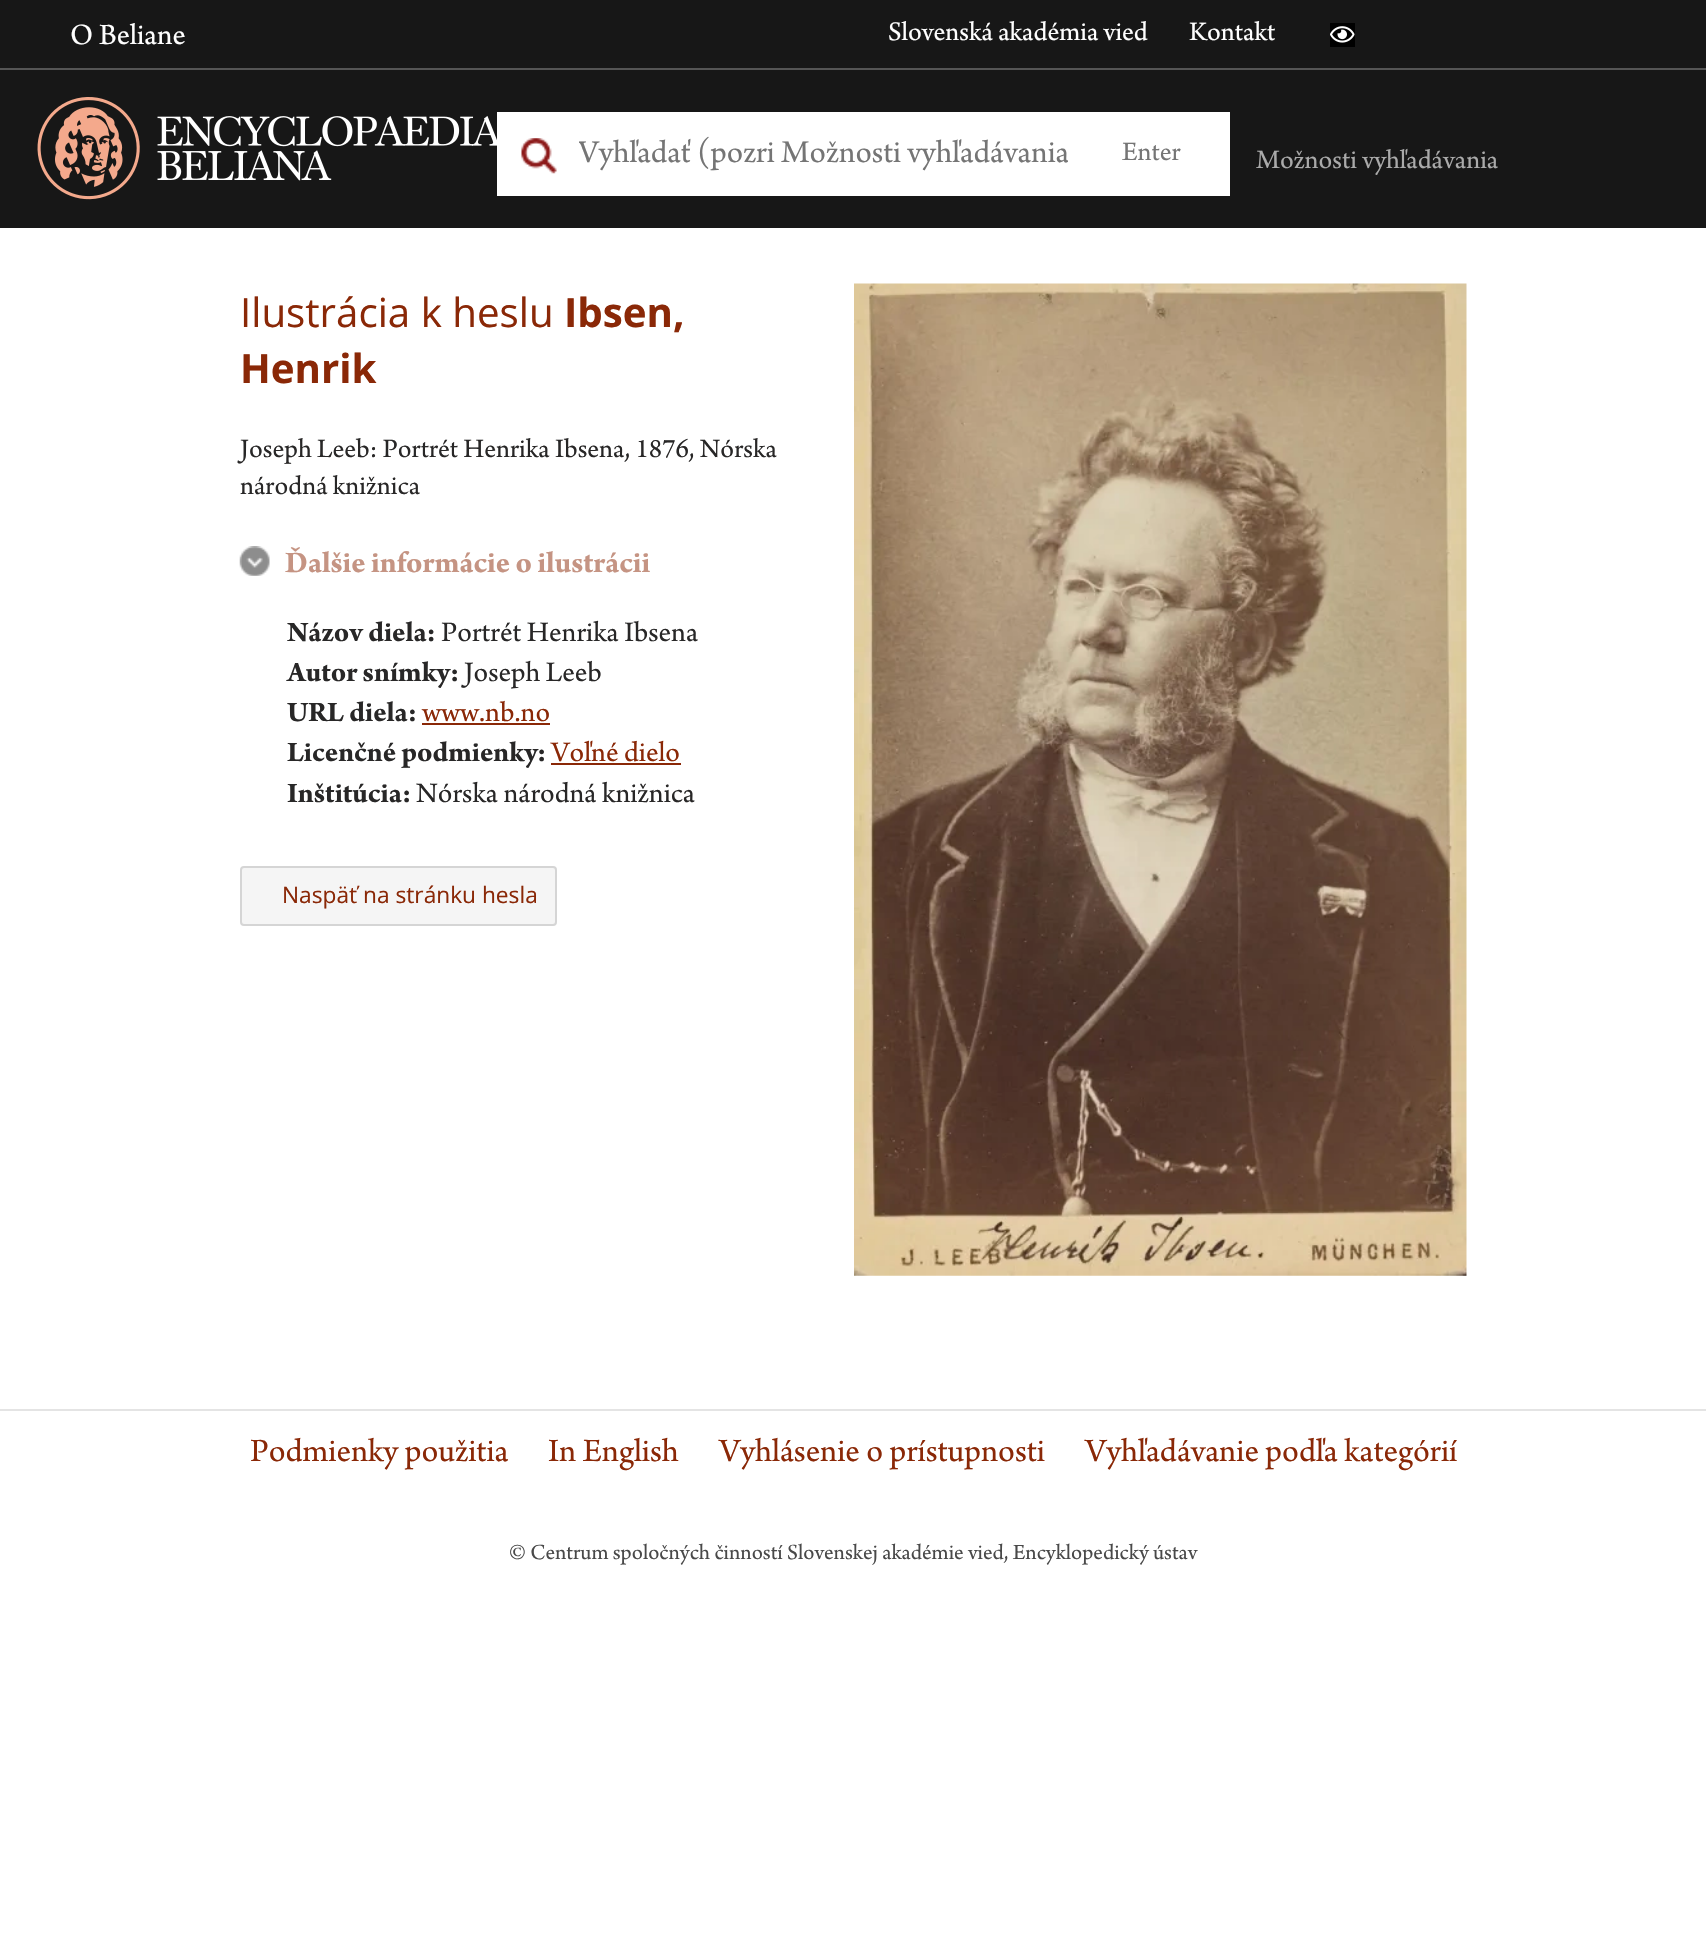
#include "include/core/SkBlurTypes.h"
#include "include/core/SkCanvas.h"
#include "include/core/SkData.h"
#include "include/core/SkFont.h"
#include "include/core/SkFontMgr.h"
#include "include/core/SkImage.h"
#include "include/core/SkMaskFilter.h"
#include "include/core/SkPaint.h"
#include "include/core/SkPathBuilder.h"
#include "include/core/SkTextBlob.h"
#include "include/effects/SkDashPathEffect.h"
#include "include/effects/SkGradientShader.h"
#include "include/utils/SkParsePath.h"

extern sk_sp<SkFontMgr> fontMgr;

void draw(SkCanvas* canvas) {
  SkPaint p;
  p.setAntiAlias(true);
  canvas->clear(SK_ColorWHITE);
  p.setColor(SkColorSetRGB(23, 23, 23));
  canvas->drawRect(SkRect::MakeLTRB(0, 0, 1706, 228), p);
  p.setColor(SkColorSetRGB(85, 85, 85));
  canvas->drawRect(SkRect::MakeLTRB(0, 68, 1706, 70), p);
  p.setColor(SK_ColorBLACK);
  canvas->drawRect(SkRect::MakeLTRB(1330, 23, 1355, 47), p);
  canvas->drawImageRect(SkImages::DeferredFromEncodedData(SkData::MakeFromFileName("images/1.png")), SkRect::MakeLTRB(1330, 26, 1355, 43), SkSamplingOptions());
  canvas->drawImageRect(SkImages::DeferredFromEncodedData(SkData::MakeFromFileName("images/2.png")), SkRect::MakeLTRB(37, 97, 497, 200), SkSamplingOptions());
  p.setColor(SK_ColorWHITE);
  canvas->drawRect(SkRect::MakeLTRB(497, 112, 1230, 196), p);
  canvas->drawImageRect(SkImages::DeferredFromEncodedData(SkData::MakeFromFileName("images/3.png")), SkRect::MakeLTRB(521, 138, 557, 174), SkSamplingOptions());
  canvas->drawImageRect(SkImages::DeferredFromEncodedData(SkData::MakeFromFileName("images/4.png")), SkRect::MakeLTRB(239, 546, 270, 576), SkSamplingOptions());
  p.setColor(SkColorSetRGB(138, 40, 7));
  canvas->drawRect(SkRect::MakeLTRB(422, 723, 550, 725), p);
  canvas->drawRect(SkRect::MakeLTRB(551, 763, 681, 765), p);
  p.setColor(SkColorSetRGB(245, 245, 245));
  canvas->drawRoundRect(SkRect::MakeLTRB(241, 867, 556, 925), 3, 3, p);
  p.setStyle(SkPaint::kStroke_Style);
  p.setStrokeWidth(2);
  p.setColor(SkColorSetRGB(213, 213, 213));
  canvas->drawRoundRect(SkRect::MakeLTRB(241, 867, 556, 925), 3, 3, p);
  canvas->drawImageRect(SkImages::DeferredFromEncodedData(SkData::MakeFromFileName("images/5.png")), SkRect::MakeLTRB(854, 283, 1467, 1276), SkSamplingOptions());
  p.setStyle(SkPaint::kFill_Style);
  p.setColor(SkColorSetRGB(228, 228, 228));
  canvas->drawRect(SkRect::MakeLTRB(0, 1409, 1706, 1411), p);
  SkFont font1(fontMgr->matchFamilyStyle("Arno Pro", SkFontStyle::Normal()), 31);
  font1.setSubpixel(true);
  p.setColor(SK_ColorWHITE);
  canvas->drawString("O Beliane", 70, 44, font1, p);
  SkFont font2(fontMgr->matchFamilyStyle("Arno Pro", SkFontStyle::Normal()), 28);
  font2.setSubpixel(true);
  canvas->drawString("Slovenská akadémia vied", 888, 40, font2, p);
  canvas->drawString("Kontakt", 1189, 40, font2, p);
  canvas->save();
  canvas->clipRect(SkRect::MakeLTRB(579, 131, 1068, 177));
  SkFont font3(fontMgr->matchFamilyStyle("Arno Pro", SkFontStyle::Normal()), 33.3f);
  font3.setSubpixel(true);
  p.setColor(SkColorSetRGB(117, 117, 117));
  canvas->drawString("Vyhľadať (pozri Možnosti vyhľadávania", 578, 162, font3, p);
  canvas->restore();
  canvas->drawString("Enter", 1122, 160, font2, p);
  p.setColor(SkColorSetRGB(170, 170, 170));
  canvas->drawString("Možnosti vyhľadávania", 1256, 168, font2, p);
  SkFont font4(fontMgr->matchFamilyStyle("Open Sans", SkFontStyle::Normal()), 40.25f);
  font4.setSubpixel(true);
  p.setColor(SkColorSetRGB(138, 40, 7));
  canvas->drawString("Ilustrácia k heslu", 240, 327, font4, p);
  SkFont font5(fontMgr->matchFamilyStyle("Open Sans", SkFontStyle::Bold()), 40.25f);
  font5.setSubpixel(true);
  canvas->drawString("Ibsen,", 564, 327, font5, p);
  canvas->drawString("Henrik", 240, 383, font5, p);
  p.setColor(SkColorSetRGB(40, 39, 39));
  canvas->drawString("Joseph Leeb: Portrét Henrika Ibsena, 1876, Nórska", 240, 457, font2, p);
  canvas->drawString("národná knižnica", 240, 494, font2, p);
  SkFont font6(fontMgr->matchFamilyStyle("Arno Pro", SkFontStyle::Bold()), 31.6f);
  font6.setSubpixel(true);
  p.setColor(SkColorSetRGB(197, 148, 131));
  canvas->drawString("Ďalšie informácie o ilustrácii", 285, 572, font6, p);
  SkFont font7(fontMgr->matchFamilyStyle("Arno Pro", SkFontStyle::Bold()), 29.75f);
  font7.setSubpixel(true);
  p.setColor(SkColorSetRGB(40, 39, 39));
  canvas->drawString("Názov diela:", 287, 641, font7, p);
  SkFont font8(fontMgr->matchFamilyStyle("Arno Pro", SkFontStyle::Normal()), 29.75f);
  font8.setSubpixel(true);
  canvas->drawString("Portrét Henrika Ibsena", 441, 641, font8, p);
  canvas->drawString("Autor snímky:", 287, 681, font7, p);
  canvas->drawString("Joseph Leeb", 464, 681, font8, p);
  canvas->drawString("URL diela:", 287, 721, font7, p);
  p.setColor(SkColorSetRGB(138, 40, 7));
  canvas->drawString("www.nb.no", 422, 721, font8, p);
  p.setColor(SkColorSetRGB(40, 39, 39));
  canvas->drawString("Licenčné podmienky", 287, 761, font7, p);
  canvas->drawString(":", 537, 761, font7, p);
  p.setColor(SkColorSetRGB(138, 40, 7));
  canvas->drawString("Voľné dielo", 551, 761, font8, p);
  p.setColor(SkColorSetRGB(40, 39, 39));
  canvas->drawString("Inštitúcia:", 287, 802, font7, p);
  canvas->drawString("Nórska národná knižnica", 416, 802, font8, p);
  SkFont font9(fontMgr->matchFamilyStyle("Open Sans", SkFontStyle::Normal()), 22.7f);
  font9.setSubpixel(true);
  p.setColor(SkColorSetRGB(138, 40, 7));
  canvas->drawString("Naspäť na stránku hesla", 282, 903, font9, p);
  SkFont font10(fontMgr->matchFamilyStyle("Arno Pro", SkFontStyle::Normal()), 34.25f);
  font10.setSubpixel(true);
  canvas->drawString("Podmienky použitia", 250, 1461, font10, p);
  canvas->drawString("In English", 548, 1461, font10, p);
  canvas->drawString("Vyhlásenie o prístupnosti", 719, 1461, font10, p);
  canvas->drawString("Vyhľadávanie podľa kategórií", 1085, 1461, font10, p);
  SkFont font11(fontMgr->matchFamilyStyle("Arno Pro", SkFontStyle::Normal()), 22.7f);
  font11.setSubpixel(true);
  p.setColor(SkColorSetRGB(73, 73, 73));
  canvas->drawString("© Centrum spoločných činností Slovenskej akadémie vied, Encyklopedický ústav", 509, 1559, font11, p);
}
